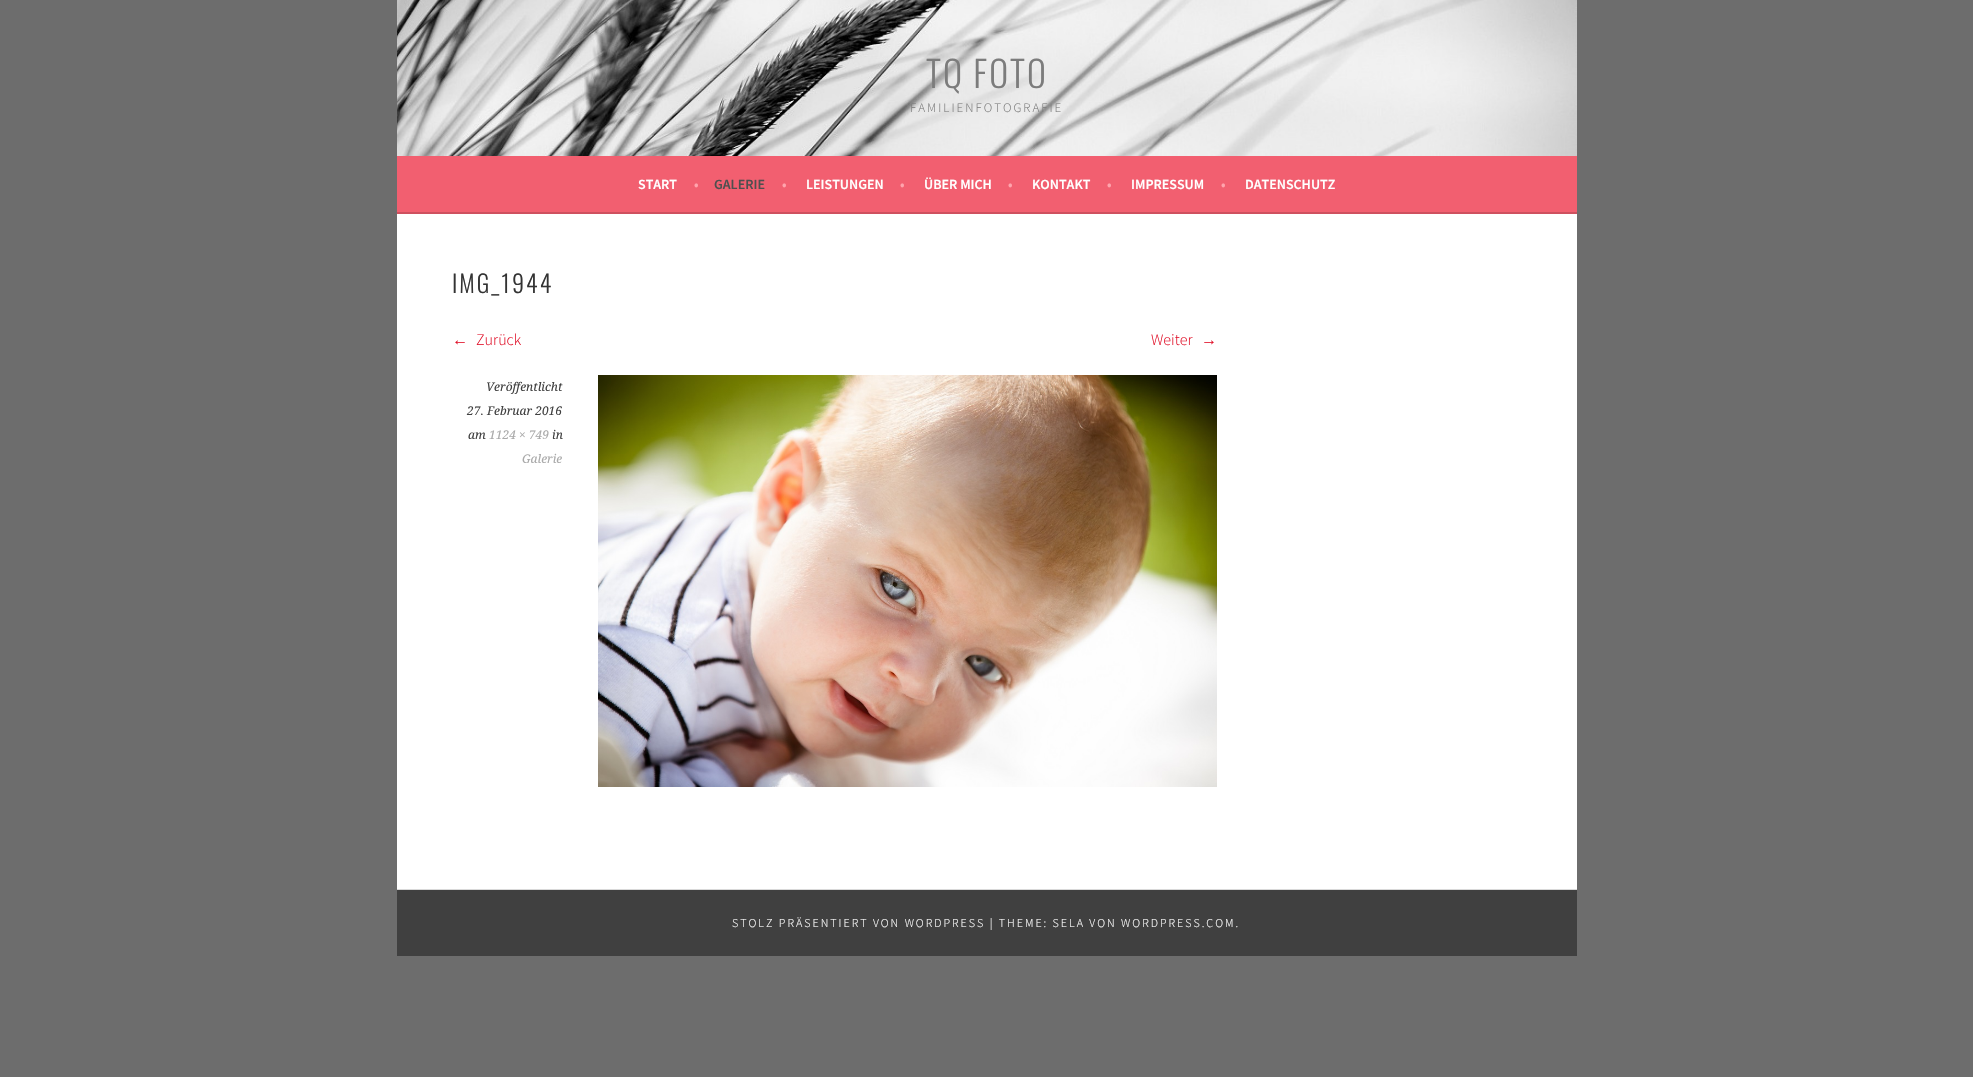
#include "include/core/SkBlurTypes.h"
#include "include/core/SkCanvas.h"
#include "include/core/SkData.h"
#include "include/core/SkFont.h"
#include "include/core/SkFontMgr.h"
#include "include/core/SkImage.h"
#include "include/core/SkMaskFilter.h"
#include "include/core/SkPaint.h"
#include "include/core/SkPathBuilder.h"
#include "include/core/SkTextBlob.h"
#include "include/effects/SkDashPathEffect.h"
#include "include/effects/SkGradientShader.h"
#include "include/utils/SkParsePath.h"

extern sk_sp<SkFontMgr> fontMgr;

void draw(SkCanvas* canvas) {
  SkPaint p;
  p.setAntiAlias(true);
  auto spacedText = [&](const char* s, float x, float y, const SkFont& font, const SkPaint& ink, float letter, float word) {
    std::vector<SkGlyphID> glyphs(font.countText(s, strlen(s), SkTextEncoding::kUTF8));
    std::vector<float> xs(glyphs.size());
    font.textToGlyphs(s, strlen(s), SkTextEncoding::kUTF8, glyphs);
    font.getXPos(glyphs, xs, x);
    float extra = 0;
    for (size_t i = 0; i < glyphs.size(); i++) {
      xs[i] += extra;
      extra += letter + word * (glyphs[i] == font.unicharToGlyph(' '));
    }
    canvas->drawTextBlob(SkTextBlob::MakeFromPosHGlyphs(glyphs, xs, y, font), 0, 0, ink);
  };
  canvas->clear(SkColorSetRGB(109, 109, 109));
  canvas->drawImageRect(SkImages::DeferredFromEncodedData(SkData::MakeFromFileName("images/1.png")), SkRect::MakeLTRB(397, 0, 1577, 156), SkSamplingOptions());
  p.setColor(SkColorSetRGB(242, 95, 112));
  canvas->drawRect(SkRect::MakeLTRB(397, 156, 1577, 212), p);
  p.setColor(SkColorSetRGB(206, 81, 95));
  canvas->drawRect(SkRect::MakeLTRB(397, 212, 1577, 214), p);
  p.setColor(SK_ColorWHITE);
  canvas->drawRect(SkRect::MakeLTRB(397, 214, 1577, 889), p);
  canvas->drawImageRect(SkImages::DeferredFromEncodedData(SkData::MakeFromFileName("images/2.png")), SkRect::MakeLTRB(598, 375, 1217, 787), SkSamplingOptions());
  p.setColor(SkColorSetRGB(64, 64, 64));
  canvas->drawRect(SkRect::MakeLTRB(397, 890, 1577, 956), p);
  p.setColor(SkColorSetRGB(217, 217, 217));
  canvas->drawRect(SkRect::MakeLTRB(397, 889, 1577, 890), p);
  SkFont font1(fontMgr->matchFamilyStyle("Oswald", SkFontStyle(300, SkFontStyle::kNormal_Width, SkFontStyle::kUpright_Slant)), 36);
  font1.setSubpixel(true);
  p.setColor(SkColorSetRGB(124, 124, 124));
  spacedText("TQ FOTO", 926, 88, font1, p, 2, 0);
  SkFont font2(fontMgr->matchFamilyStyle("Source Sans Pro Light", SkFontStyle(300, SkFontStyle::kNormal_Width, SkFontStyle::kUpright_Slant)), 13);
  font2.setSubpixel(true);
  spacedText("FAMILIENFOTOGRAFIE", 910, 112, font2, p, 2, 0);
  SkFont font3(fontMgr->matchFamilyStyle("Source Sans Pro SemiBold", SkFontStyle(600, SkFontStyle::kNormal_Width, SkFontStyle::kUpright_Slant)), 14);
  font3.setSubpixel(true);
  p.setColor(SK_ColorWHITE);
  canvas->drawString("START", 638, 189, font3, p);
  p.setColor(SkColorSetRGB(255, 164, 173));
  canvas->drawString("•", 694, 189, font3, p);
  p.setColor(SkColorSetRGB(79, 79, 79));
  canvas->drawString("GALERIE", 714, 189, font3, p);
  p.setColor(SkColorSetRGB(255, 164, 173));
  canvas->drawString("•", 782, 189, font3, p);
  p.setColor(SK_ColorWHITE);
  canvas->drawString("LEISTUNGEN", 806, 189, font3, p);
  p.setColor(SkColorSetRGB(255, 164, 173));
  canvas->drawString("•", 900, 189, font3, p);
  p.setColor(SK_ColorWHITE);
  canvas->drawString("ÜBER MICH", 924, 189, font3, p);
  p.setColor(SkColorSetRGB(255, 164, 173));
  canvas->drawString("•", 1008, 189, font3, p);
  p.setColor(SK_ColorWHITE);
  canvas->drawString("KONTAKT", 1032, 189, font3, p);
  p.setColor(SkColorSetRGB(255, 164, 173));
  canvas->drawString("•", 1107, 189, font3, p);
  p.setColor(SK_ColorWHITE);
  canvas->drawString("IMPRESSUM", 1131, 189, font3, p);
  p.setColor(SkColorSetRGB(255, 164, 173));
  canvas->drawString("•", 1221, 189, font3, p);
  p.setColor(SK_ColorWHITE);
  canvas->drawString("DATENSCHUTZ", 1245, 189, font3, p);
  SkFont font4(fontMgr->matchFamilyStyle("Oswald", SkFontStyle(300, SkFontStyle::kNormal_Width, SkFontStyle::kUpright_Slant)), 24);
  font4.setSubpixel(true);
  p.setColor(SkColorSetRGB(51, 51, 51));
  spacedText("IMG_1944", 452, 293, font4, p, 2, 0);
  SkFont font5(fontMgr->matchFamilyStyle("Liberation Sans", SkFontStyle::Normal()), 16);
  font5.setSubpixel(true);
  p.setColor(SkColorSetRGB(225, 18, 42));
  canvas->drawString("←", 452, 345, font5, p);
  SkFont font6(fontMgr->matchFamilyStyle("Source Sans Pro Light", SkFontStyle(300, SkFontStyle::kNormal_Width, SkFontStyle::kUpright_Slant)), 16);
  font6.setSubpixel(true);
  canvas->drawString("Zurück", 476, 345, font6, p);
  canvas->drawString("Weiter", 1151, 345, font6, p);
  canvas->drawString("→", 1201, 345, font5, p);
  SkFont font7(fontMgr->matchFamilyStyle("Droid Serif", SkFontStyle::Italic()), 12);
  font7.setSubpixel(true);
  p.setColor(SkColorSetRGB(64, 64, 64));
  canvas->drawString("Veröffentlicht", 486, 391, font7, p);
  canvas->drawString("27. Februar 2016", 467, 415, font7, p);
  canvas->drawString("am", 468, 439, font7, p);
  p.setColor(SkColorSetRGB(170, 170, 170));
  canvas->drawString("1124 × 749", 489, 439, font7, p);
  p.setColor(SkColorSetRGB(64, 64, 64));
  canvas->drawString("in", 552, 439, font7, p);
  p.setColor(SkColorSetRGB(170, 170, 170));
  canvas->drawString("Galerie", 522, 463, font7, p);
  SkFont font8(fontMgr->matchFamilyStyle("Source Sans Pro Light", SkFontStyle(300, SkFontStyle::kNormal_Width, SkFontStyle::kUpright_Slant)), 12);
  font8.setSubpixel(true);
  p.setColor(SK_ColorWHITE);
  spacedText("STOLZ PRÄSENTIERT VON WORDPRESS | THEME: SELA VON WORDPRESS.COM.", 732, 927, font8, p, 2, 0);
}
